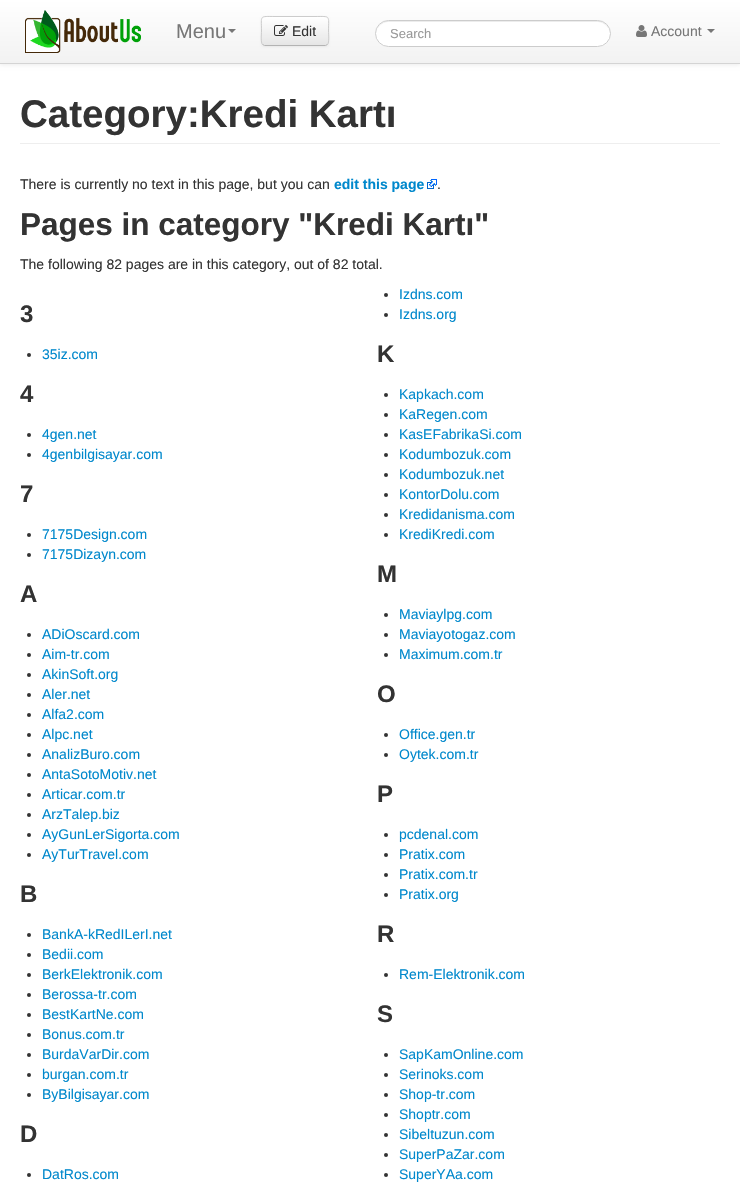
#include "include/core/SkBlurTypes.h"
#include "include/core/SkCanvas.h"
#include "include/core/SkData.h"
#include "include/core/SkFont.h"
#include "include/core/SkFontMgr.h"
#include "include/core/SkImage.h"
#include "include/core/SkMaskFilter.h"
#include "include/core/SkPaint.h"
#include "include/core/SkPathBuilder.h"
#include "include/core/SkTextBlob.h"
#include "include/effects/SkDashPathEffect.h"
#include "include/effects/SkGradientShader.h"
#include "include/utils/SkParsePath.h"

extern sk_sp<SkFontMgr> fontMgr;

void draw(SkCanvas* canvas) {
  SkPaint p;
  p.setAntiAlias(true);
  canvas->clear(SK_ColorWHITE);
  p.setColor(SkColorSetARGB(18, 0, 0, 0));
  p.setMaskFilter(SkMaskFilter::MakeBlur(kNormal_SkBlurStyle, 2));
  canvas->drawRect(SkRect::MakeLTRB(0, 1, 740, 65), p);
  p.setMaskFilter(nullptr);
  {
    const SkColor colors[] = {SK_ColorWHITE, SkColorSetRGB(242, 242, 242)};
    const float stops[] = {0, 1};
    const SkPoint ends[] = {{370, 0}, {370, 63}};
    p.setShader(SkGradientShader::MakeLinear(ends, colors, stops, 2, SkTileMode::kClamp));
    p.setAlpha(255);
  }
  canvas->drawRect(SkRect::MakeLTRB(0, 0, 740, 63), p);
  p.setShader(nullptr);
  p.setColor(SkColorSetRGB(212, 212, 212));
  canvas->drawRect(SkRect::MakeLTRB(0, 63, 740, 64), p);
  canvas->drawImageRect(SkImages::DeferredFromEncodedData(SkData::MakeFromFileName("images/1.png")), SkRect::MakeLTRB(25, 10, 141, 53), SkSamplingOptions());
  p.setColor(SkColorSetRGB(119, 119, 119));
  canvas->drawPath(SkPathBuilder().moveTo(228, 29).lineTo(236, 29).lineTo(232, 33).close().detach(), p);
  p.setColor(SkColorSetARGB(13, 0, 0, 0));
  p.setMaskFilter(SkMaskFilter::MakeBlur(kNormal_SkBlurStyle, 1));
  canvas->drawRoundRect(SkRect::MakeLTRB(261, 17, 329, 47), 4, 4, p);
  p.setMaskFilter(nullptr);
  p.setColor(SkColorSetRGB(245, 245, 245));
  canvas->drawRoundRect(SkRect::MakeLTRB(261, 16, 329, 46), 4, 4, p);
  canvas->save();
  canvas->clipPath(SkPathBuilder().moveTo(265, 16).lineTo(325, 16).cubicTo(327, 16, 329, 18, 329, 20).lineTo(329, 42).cubicTo(329, 44, 327, 46, 325, 46).lineTo(265, 46).cubicTo(263, 46, 261, 44, 261, 42).lineTo(261, 20).cubicTo(261, 18, 263, 16, 265, 16).close().detach(), true);
  {
    const SkColor colors[] = {SK_ColorWHITE, SkColorSetRGB(230, 230, 230)};
    const float stops[] = {0, 1};
    const SkPoint ends[] = {{295, 17}, {295, 45}};
    p.setShader(SkGradientShader::MakeLinear(ends, colors, stops, 2, SkTileMode::kClamp));
    p.setAlpha(255);
  }
  canvas->drawRect(SkRect::MakeLTRB(261, 17, 329, 45), p);
  canvas->restore();
  p.setStyle(SkPaint::kStroke_Style);
  p.setStrokeWidth(1);
  p.setShader(nullptr);
  p.setColor(SkColorSetRGB(179, 179, 179));
  canvas->drawPath(SkPathBuilder().moveTo(327.5f, 44.5f).lineTo(325.5f, 45.5f).lineTo(264.5f, 45.5f).lineTo(262.5f, 44.5f).detach(), p);
  p.setColor(SkColorSetRGB(204, 204, 204));
  canvas->drawPath(SkPathBuilder().moveTo(262.5f, 44.5f).cubicTo(260.5f, 42.5f, 261.5f, 34, 261.5f, 31).cubicTo(261.5f, 15, 259, 16.5f, 275, 16.5f).lineTo(315, 16.5f).cubicTo(331, 16.5f, 328.5f, 15, 328.5f, 31).cubicTo(328.5f, 34, 329.5f, 42.5f, 327.5f, 44.5f).detach(), p);
  canvas->drawImageRect(SkImages::DeferredFromEncodedData(SkData::MakeFromFileName("images/2.png")), SkRect::MakeLTRB(274, 25, 288, 36), SkSamplingOptions());
  p.setStyle(SkPaint::kFill_Style);
  p.setColor(SK_ColorWHITE);
  canvas->drawRoundRect(SkRect::MakeLTRB(375, 20, 611, 47), 13.5f, 13.5f, p);
  p.setColor(SkColorSetRGB(236, 236, 236));
  canvas->drawPath(SkPathBuilder().moveTo(388, 22).lineTo(598, 22).cubicTo(604, 22, 610, 28, 610, 34).cubicTo(610, 27, 604, 21, 598, 21).lineTo(388, 21).cubicTo(382, 21, 376, 27, 376, 34).cubicTo(376, 28, 382, 22, 388, 22).close().detach(), p);
  p.setStyle(SkPaint::kStroke_Style);
  p.setColor(SkColorSetRGB(204, 204, 204));
  canvas->drawRoundRect(SkRect::MakeLTRB(375.5f, 20.5f, 610.5f, 46.5f), 13, 13, p);
  canvas->drawImageRect(SkImages::DeferredFromEncodedData(SkData::MakeFromFileName("images/3.png")), SkRect::MakeLTRB(636, 25, 647, 37), SkSamplingOptions());
  p.setStyle(SkPaint::kFill_Style);
  p.setColor(SkColorSetRGB(119, 119, 119));
  canvas->drawPath(SkPathBuilder().moveTo(707, 29).lineTo(715, 29).lineTo(711, 33).close().detach(), p);
  p.setColor(SkColorSetRGB(238, 238, 238));
  canvas->drawRect(SkRect::MakeLTRB(20, 143, 720, 144), p);
  canvas->drawImageRect(SkImages::DeferredFromEncodedData(SkData::MakeFromFileName("images/4.png")), SkRect::MakeLTRB(427, 179, 437, 189), SkSamplingOptions());
  p.setColor(SkColorSetRGB(51, 51, 51));
  canvas->drawCircle(29, 355, 2, p);
  canvas->drawCircle(386, 295, 2, p);
  canvas->drawCircle(386, 315, 2, p);
  canvas->drawCircle(29, 435, 2, p);
  canvas->drawCircle(29, 455, 2, p);
  canvas->drawCircle(386, 395, 2, p);
  canvas->drawCircle(386, 415, 2, p);
  canvas->drawCircle(386, 435, 2, p);
  canvas->drawCircle(386, 455, 2, p);
  canvas->drawCircle(386, 475, 2, p);
  canvas->drawCircle(386, 495, 2, p);
  canvas->drawCircle(386, 515, 2, p);
  canvas->drawCircle(386, 535, 2, p);
  canvas->drawCircle(29, 535, 2, p);
  canvas->drawCircle(29, 555, 2, p);
  canvas->drawCircle(29, 635, 2, p);
  canvas->drawCircle(29, 655, 2, p);
  canvas->drawCircle(29, 675, 2, p);
  canvas->drawCircle(29, 695, 2, p);
  canvas->drawCircle(29, 715, 2, p);
  canvas->drawCircle(29, 735, 2, p);
  canvas->drawCircle(29, 755, 2, p);
  canvas->drawCircle(29, 775, 2, p);
  canvas->drawCircle(29, 795, 2, p);
  canvas->drawCircle(29, 815, 2, p);
  canvas->drawCircle(29, 835, 2, p);
  canvas->drawCircle(29, 855, 2, p);
  canvas->drawCircle(386, 615, 2, p);
  canvas->drawCircle(386, 635, 2, p);
  canvas->drawCircle(386, 655, 2, p);
  canvas->drawCircle(386, 735, 2, p);
  canvas->drawCircle(386, 755, 2, p);
  canvas->drawCircle(386, 835, 2, p);
  canvas->drawCircle(386, 855, 2, p);
  canvas->drawCircle(386, 875, 2, p);
  canvas->drawCircle(386, 895, 2, p);
  canvas->drawCircle(29, 935, 2, p);
  canvas->drawCircle(29, 955, 2, p);
  canvas->drawCircle(29, 975, 2, p);
  canvas->drawCircle(29, 995, 2, p);
  canvas->drawCircle(29, 1015, 2, p);
  canvas->drawCircle(29, 1035, 2, p);
  canvas->drawCircle(29, 1055, 2, p);
  canvas->drawCircle(29, 1075, 2, p);
  canvas->drawCircle(29, 1095, 2, p);
  canvas->drawCircle(386, 975, 2, p);
  canvas->drawCircle(29, 1175, 2, p);
  canvas->drawCircle(386, 1055, 2, p);
  canvas->drawCircle(386, 1075, 2, p);
  canvas->drawCircle(386, 1095, 2, p);
  canvas->drawCircle(386, 1115, 2, p);
  canvas->drawCircle(386, 1135, 2, p);
  canvas->drawCircle(386, 1155, 2, p);
  canvas->drawCircle(386, 1175, 2, p);
  SkFont font1(fontMgr->matchFamilyStyle("Liberation Sans", SkFontStyle::Normal()), 20);
  font1.setSubpixel(true);
  p.setColor(SkColorSetRGB(119, 119, 119));
  canvas->drawString("Menu", 176, 38, font1, p);
  SkFont font2(fontMgr->matchFamilyStyle("Liberation Sans", SkFontStyle::Normal()), 14);
  font2.setSubpixel(true);
  p.setColor(SkColorSetRGB(51, 51, 51));
  canvas->drawString("Edit", 292, 36, font2, p);
  SkFont font3(fontMgr->matchFamilyStyle("Liberation Sans", SkFontStyle::Normal()), 13);
  font3.setSubpixel(true);
  p.setColor(SkColorSetRGB(153, 153, 153));
  canvas->drawString("Search", 390, 38, font3, p);
  p.setColor(SkColorSetRGB(119, 119, 119));
  canvas->drawString("Account", 651, 36, font2, p);
  SkFont font4(fontMgr->matchFamilyStyle("Liberation Sans", SkFontStyle::Bold()), 38.5f);
  font4.setSubpixel(true);
  p.setColor(SkColorSetRGB(51, 51, 51));
  canvas->drawString("Category:Kredi Kartı", 20, 127, font4, p);
  canvas->drawString("There is currently no text in this page, but you can", 20, 189, font2, p);
  SkFont font5(fontMgr->matchFamilyStyle("Liberation Sans", SkFontStyle::Bold()), 14);
  font5.setSubpixel(true);
  p.setColor(SkColorSetRGB(0, 136, 204));
  canvas->drawString("edit this page", 334, 189, font5, p);
  p.setColor(SkColorSetRGB(51, 51, 51));
  canvas->drawString(".", 437, 189, font2, p);
  SkFont font6(fontMgr->matchFamilyStyle("Liberation Sans", SkFontStyle::Bold()), 31.5f);
  font6.setSubpixel(true);
  canvas->drawString("Pages in category \"Kredi Kartı\"", 20, 235, font6, p);
  canvas->drawString("The following 82 pages are in this category, out of 82 total.", 20, 269, font2, p);
  SkFont font7(fontMgr->matchFamilyStyle("Liberation Sans", SkFontStyle::Bold()), 24);
  font7.setSubpixel(true);
  canvas->drawString("3", 20, 322, font7, p);
  p.setColor(SkColorSetRGB(0, 136, 204));
  canvas->drawString("35iz.com", 42, 359, font2, p);
  canvas->drawString("Izdns.com", 399, 299, font2, p);
  canvas->drawString("Izdns.org", 399, 319, font2, p);
  p.setColor(SkColorSetRGB(51, 51, 51));
  canvas->drawString("4", 20, 402, font7, p);
  p.setColor(SkColorSetRGB(0, 136, 204));
  canvas->drawString("4gen.net", 42, 439, font2, p);
  canvas->drawString("4genbilgisayar.com", 42, 459, font2, p);
  p.setColor(SkColorSetRGB(51, 51, 51));
  canvas->drawString("K", 377, 362, font7, p);
  p.setColor(SkColorSetRGB(0, 136, 204));
  canvas->drawString("Kapkach.com", 399, 399, font2, p);
  canvas->drawString("KaRegen.com", 399, 419, font2, p);
  canvas->drawString("KasEFabrikaSi.com", 399, 439, font2, p);
  canvas->drawString("Kodumbozuk.com", 399, 459, font2, p);
  canvas->drawString("Kodumbozuk.net", 399, 479, font2, p);
  canvas->drawString("KontorDolu.com", 399, 499, font2, p);
  canvas->drawString("Kredidanisma.com", 399, 519, font2, p);
  canvas->drawString("KrediKredi.com", 399, 539, font2, p);
  p.setColor(SkColorSetRGB(51, 51, 51));
  canvas->drawString("7", 20, 502, font7, p);
  p.setColor(SkColorSetRGB(0, 136, 204));
  canvas->drawString("7175Design.com", 42, 539, font2, p);
  canvas->drawString("7175Dizayn.com", 42, 559, font2, p);
  p.setColor(SkColorSetRGB(51, 51, 51));
  canvas->drawString("A", 20, 602, font7, p);
  p.setColor(SkColorSetRGB(0, 136, 204));
  canvas->drawString("ADiOscard.com", 42, 639, font2, p);
  canvas->drawString("Aim-tr.com", 42, 659, font2, p);
  canvas->drawString("AkinSoft.org", 42, 679, font2, p);
  canvas->drawString("Aler.net", 42, 699, font2, p);
  canvas->drawString("Alfa2.com", 42, 719, font2, p);
  canvas->drawString("Alpc.net", 42, 739, font2, p);
  canvas->drawString("AnalizBuro.com", 42, 759, font2, p);
  canvas->drawString("AntaSotoMotiv.net", 42, 779, font2, p);
  canvas->drawString("Articar.com.tr", 42, 799, font2, p);
  canvas->drawString("ArzTalep.biz", 42, 819, font2, p);
  canvas->drawString("AyGunLerSigorta.com", 42, 839, font2, p);
  canvas->drawString("AyTurTravel.com", 42, 859, font2, p);
  p.setColor(SkColorSetRGB(51, 51, 51));
  canvas->drawString("M", 377, 582, font7, p);
  p.setColor(SkColorSetRGB(0, 136, 204));
  canvas->drawString("Maviaylpg.com", 399, 619, font2, p);
  canvas->drawString("Maviayotogaz.com", 399, 639, font2, p);
  canvas->drawString("Maximum.com.tr", 399, 659, font2, p);
  p.setColor(SkColorSetRGB(51, 51, 51));
  canvas->drawString("O", 377, 702, font7, p);
  p.setColor(SkColorSetRGB(0, 136, 204));
  canvas->drawString("Office.gen.tr", 399, 739, font2, p);
  canvas->drawString("Oytek.com.tr", 399, 759, font2, p);
  p.setColor(SkColorSetRGB(51, 51, 51));
  canvas->drawString("P", 377, 802, font7, p);
  p.setColor(SkColorSetRGB(0, 136, 204));
  canvas->drawString("pcdenal.com", 399, 839, font2, p);
  canvas->drawString("Pratix.com", 399, 859, font2, p);
  canvas->drawString("Pratix.com.tr", 399, 879, font2, p);
  canvas->drawString("Pratix.org", 399, 899, font2, p);
  p.setColor(SkColorSetRGB(51, 51, 51));
  canvas->drawString("B", 20, 902, font7, p);
  p.setColor(SkColorSetRGB(0, 136, 204));
  canvas->drawString("BankA-kRedILerI.net", 42, 939, font2, p);
  canvas->drawString("Bedii.com", 42, 959, font2, p);
  canvas->drawString("BerkElektronik.com", 42, 979, font2, p);
  canvas->drawString("Berossa-tr.com", 42, 999, font2, p);
  canvas->drawString("BestKartNe.com", 42, 1019, font2, p);
  canvas->drawString("Bonus.com.tr", 42, 1039, font2, p);
  canvas->drawString("BurdaVarDir.com", 42, 1059, font2, p);
  canvas->drawString("burgan.com.tr", 42, 1079, font2, p);
  canvas->drawString("ByBilgisayar.com", 42, 1099, font2, p);
  p.setColor(SkColorSetRGB(51, 51, 51));
  canvas->drawString("R", 377, 942, font7, p);
  p.setColor(SkColorSetRGB(0, 136, 204));
  canvas->drawString("Rem-Elektronik.com", 399, 979, font2, p);
  p.setColor(SkColorSetRGB(51, 51, 51));
  canvas->drawString("D", 20, 1142, font7, p);
  p.setColor(SkColorSetRGB(0, 136, 204));
  canvas->drawString("DatRos.com", 42, 1179, font2, p);
  p.setColor(SkColorSetRGB(51, 51, 51));
  canvas->drawString("S", 377, 1022, font7, p);
  p.setColor(SkColorSetRGB(0, 136, 204));
  canvas->drawString("SapKamOnline.com", 399, 1059, font2, p);
  canvas->drawString("Serinoks.com", 399, 1079, font2, p);
  canvas->drawString("Shop-tr.com", 399, 1099, font2, p);
  canvas->drawString("Shoptr.com", 399, 1119, font2, p);
  canvas->drawString("Sibeltuzun.com", 399, 1139, font2, p);
  canvas->drawString("SuperPaZar.com", 399, 1159, font2, p);
  canvas->drawString("SuperYAa.com", 399, 1179, font2, p);
}
